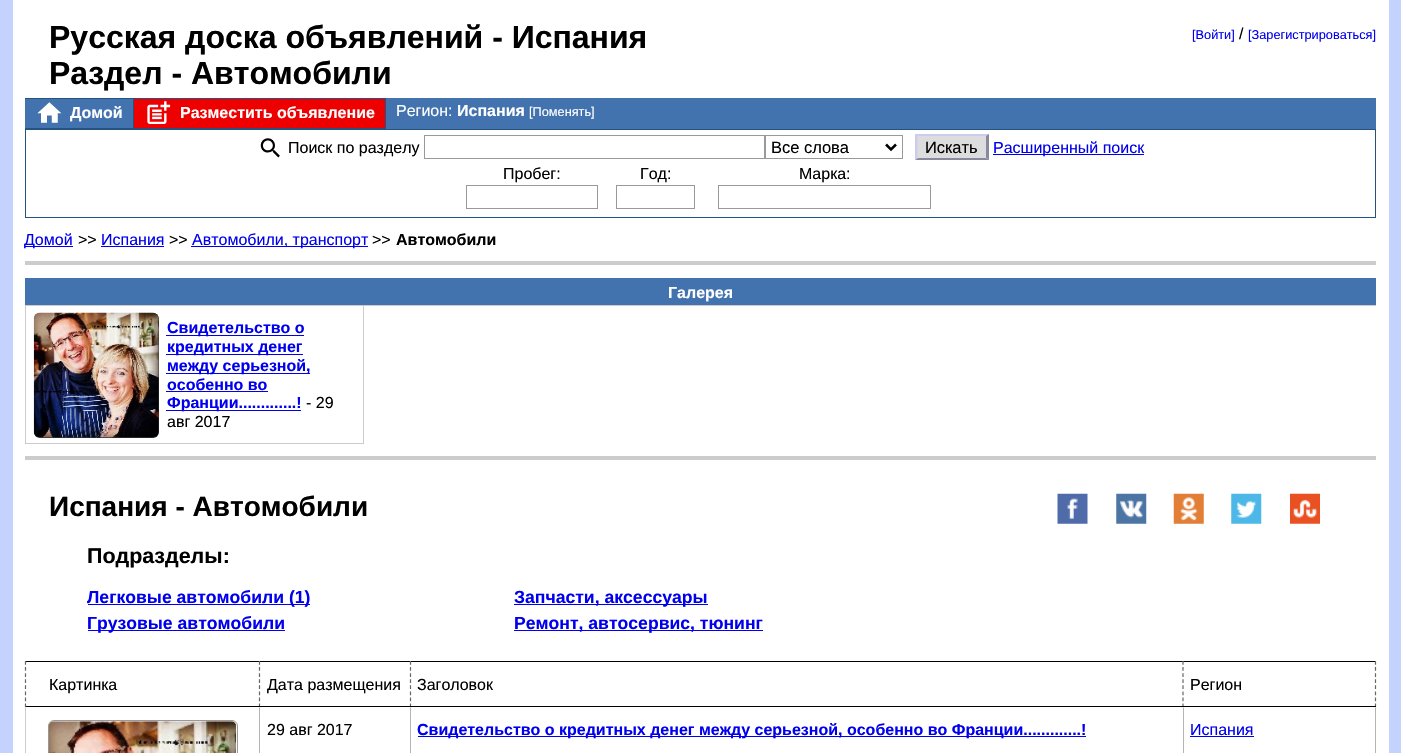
#include "include/core/SkBlurTypes.h"
#include "include/core/SkCanvas.h"
#include "include/core/SkData.h"
#include "include/core/SkFont.h"
#include "include/core/SkFontMgr.h"
#include "include/core/SkImage.h"
#include "include/core/SkMaskFilter.h"
#include "include/core/SkPaint.h"
#include "include/core/SkPathBuilder.h"
#include "include/core/SkTextBlob.h"
#include "include/effects/SkDashPathEffect.h"
#include "include/effects/SkGradientShader.h"
#include "include/utils/SkParsePath.h"

extern sk_sp<SkFontMgr> fontMgr;

void draw(SkCanvas* canvas) {
  SkPaint p;
  p.setAntiAlias(true);
  canvas->clear(SkColorSetRGB(195, 211, 254));
  p.setColor(SK_ColorWHITE);
  canvas->drawRect(SkRect::MakeLTRB(13, 0, 1389, 753), p);
  p.setColor(SkColorSetRGB(67, 115, 174));
  canvas->drawRect(SkRect::MakeLTRB(25, 98, 1376, 129), p);
  p.setColor(SkColorSetRGB(35, 83, 126));
  canvas->drawRect(SkRect::MakeLTRB(25, 98, 386, 99), p);
  canvas->drawRect(SkRect::MakeLTRB(133, 98, 134, 129), p);
  canvas->drawRect(SkRect::MakeLTRB(25, 128, 134, 129), p);
  canvas->drawImageRect(SkImages::DeferredFromEncodedData(SkData::MakeFromFileName("images/1.png")), SkRect::MakeLTRB(37, 102, 62, 123), SkSamplingOptions());
  p.setColor(SkColorSetRGB(238, 0, 0));
  canvas->drawRect(SkRect::MakeLTRB(134, 99, 385, 128), p);
  p.setColor(SkColorSetRGB(35, 83, 126));
  canvas->drawRect(SkRect::MakeLTRB(385, 98, 386, 129), p);
  canvas->drawRect(SkRect::MakeLTRB(134, 128, 386, 129), p);
  canvas->drawImageRect(SkImages::DeferredFromEncodedData(SkData::MakeFromFileName("images/2.png")), SkRect::MakeLTRB(147, 101, 171, 124), SkSamplingOptions());
  p.setStyle(SkPaint::kStroke_Style);
  p.setStrokeWidth(1);
  canvas->drawRect(SkRect::MakeLTRB(25.5f, 129.5f, 1375.5f, 217.5f), p);
  canvas->drawImageRect(SkImages::DeferredFromEncodedData(SkData::MakeFromFileName("images/3.png")), SkRect::MakeLTRB(260, 138, 280, 158), SkSamplingOptions());
  p.setColor(SkColorSetRGB(153, 153, 153));
  canvas->drawRect(SkRect::MakeLTRB(424.5f, 135.5f, 764.5f, 158.5f), p);
  canvas->drawRect(SkRect::MakeLTRB(765.5f, 135.5f, 902.5f, 158.5f), p);
  p.setStrokeWidth(2.5f);
  p.setColor(SK_ColorBLACK);
  canvas->drawPath(SkPathBuilder().moveTo(886, 144.5f).lineTo(891, 149.5f).lineTo(896, 144.5f).detach(), p);
  p.setStyle(SkPaint::kFill_Style);
  p.setColor(SkColorSetRGB(221, 221, 221));
  canvas->drawRect(SkRect::MakeLTRB(915, 134, 989, 160), p);
  p.setColor(SkColorSetRGB(204, 204, 238));
  canvas->drawPath(SkPathBuilder().moveTo(915, 134).lineTo(989, 134).lineTo(986, 136).lineTo(918, 136).close().detach(), p);
  p.setColor(SkColorSetRGB(136, 136, 159));
  canvas->drawPath(SkPathBuilder().moveTo(989, 134).lineTo(989, 160).lineTo(986, 157.5f).lineTo(986, 136).close().detach(), p);
  canvas->drawPath(SkPathBuilder().moveTo(989, 160).lineTo(915, 160).lineTo(918, 158).lineTo(986, 158).close().detach(), p);
  p.setColor(SkColorSetRGB(204, 204, 238));
  canvas->drawPath(SkPathBuilder().moveTo(915, 160).lineTo(915, 134).lineTo(917.5f, 136).lineTo(917.5f, 157.5f).close().detach(), p);
  p.setColor(SkColorSetRGB(0, 0, 238));
  canvas->drawRect(SkRect::MakeLTRB(993, 154, 1144, 155), p);
  p.setStyle(SkPaint::kStroke_Style);
  p.setStrokeWidth(1);
  p.setColor(SkColorSetRGB(153, 153, 153));
  canvas->drawRect(SkRect::MakeLTRB(466.5f, 185.5f, 597.5f, 208.5f), p);
  canvas->drawRect(SkRect::MakeLTRB(616.5f, 185.5f, 694.5f, 208.5f), p);
  canvas->drawRect(SkRect::MakeLTRB(718.5f, 185.5f, 930.5f, 208.5f), p);
  p.setStyle(SkPaint::kFill_Style);
  p.setColor(SkColorSetRGB(0, 0, 238));
  canvas->drawRect(SkRect::MakeLTRB(25, 246, 73, 247), p);
  canvas->drawRect(SkRect::MakeLTRB(101, 246, 164, 247), p);
  canvas->drawRect(SkRect::MakeLTRB(191, 246, 368, 247), p);
  p.setColor(SkColorSetRGB(204, 204, 204));
  canvas->drawRect(SkRect::MakeLTRB(25, 261, 1376, 265), p);
  p.setColor(SkColorSetRGB(67, 115, 174));
  canvas->drawRect(SkRect::MakeLTRB(25, 278, 1376, 305), p);
  p.setColor(SkColorSetRGB(204, 204, 204));
  canvas->drawRect(SkRect::MakeLTRB(25, 305, 1376, 306), p);
  canvas->drawRect(SkRect::MakeLTRB(25, 305, 26, 444), p);
  canvas->drawRect(SkRect::MakeLTRB(363, 306, 364, 444), p);
  canvas->drawRect(SkRect::MakeLTRB(26, 443, 364, 444), p);
  p.setColor(SkColorSetRGB(51, 51, 51));
  canvas->drawRoundRect(SkRect::MakeLTRB(34, 313, 159, 438), 6, 6, p);
  canvas->drawImageRect(SkImages::DeferredFromEncodedData(SkData::MakeFromFileName("images/4.png")), SkRect::MakeLTRB(33, 312, 159, 438), SkSamplingOptions());
  p.setColor(SkColorSetRGB(0, 0, 238));
  canvas->drawRect(SkRect::MakeLTRB(166, 335, 304, 336), p);
  canvas->drawRect(SkRect::MakeLTRB(166, 354, 303, 355), p);
  canvas->drawRect(SkRect::MakeLTRB(166, 373, 310, 374), p);
  canvas->drawRect(SkRect::MakeLTRB(166, 391, 268, 392), p);
  canvas->drawRect(SkRect::MakeLTRB(166, 410, 301, 411), p);
  p.setColor(SkColorSetRGB(204, 204, 204));
  canvas->drawRect(SkRect::MakeLTRB(25, 456, 1376, 460), p);
  canvas->drawImageRect(SkImages::DeferredFromEncodedData(SkData::MakeFromFileName("images/5.png")), SkRect::MakeLTRB(1057, 493, 1088, 524), SkSamplingOptions());
  canvas->drawImageRect(SkImages::DeferredFromEncodedData(SkData::MakeFromFileName("images/6.png")), SkRect::MakeLTRB(1116, 493, 1147, 524), SkSamplingOptions());
  canvas->drawImageRect(SkImages::DeferredFromEncodedData(SkData::MakeFromFileName("images/7.png")), SkRect::MakeLTRB(1173, 493, 1204, 524), SkSamplingOptions());
  canvas->drawImageRect(SkImages::DeferredFromEncodedData(SkData::MakeFromFileName("images/8.png")), SkRect::MakeLTRB(1231, 493, 1262, 524), SkSamplingOptions());
  canvas->drawImageRect(SkImages::DeferredFromEncodedData(SkData::MakeFromFileName("images/9.png")), SkRect::MakeLTRB(1290, 493, 1320, 524), SkSamplingOptions());
  p.setColor(SkColorSetRGB(0, 0, 238));
  canvas->drawRect(SkRect::MakeLTRB(88, 604, 310, 605), p);
  canvas->drawRect(SkRect::MakeLTRB(514, 604, 708, 605), p);
  canvas->drawRect(SkRect::MakeLTRB(88, 630, 285, 631), p);
  canvas->drawRect(SkRect::MakeLTRB(514, 630, 763, 631), p);
  p.setColor(SK_ColorBLACK);
  canvas->drawRect(SkRect::MakeLTRB(25, 661, 260, 662), p);
  p.setStyle(SkPaint::kStroke_Style);
  p.setStrokeWidth(1.2f);
  p.setColor(SkColorSetRGB(102, 102, 102));
  p.setPathEffect(SkDashPathEffect::Make({{3.75f, 2.33f}}, 0));
  canvas->drawPath(SkPathBuilder().moveTo(259.5f, 661).lineTo(259.5f, 707.5f).detach(), p);
  p.setPathEffect(nullptr);
  p.setStyle(SkPaint::kFill_Style);
  p.setColor(SK_ColorBLACK);
  canvas->drawRect(SkRect::MakeLTRB(25, 706, 260, 707), p);
  p.setStyle(SkPaint::kStroke_Style);
  p.setColor(SkColorSetRGB(102, 102, 102));
  p.setPathEffect(SkDashPathEffect::Make({{3.75f, 2.33f}}, 0));
  canvas->drawPath(SkPathBuilder().moveTo(25.5f, 661).lineTo(25.5f, 707.5f).detach(), p);
  p.setPathEffect(nullptr);
  p.setStyle(SkPaint::kFill_Style);
  p.setColor(SK_ColorBLACK);
  canvas->drawRect(SkRect::MakeLTRB(260, 661, 411, 662), p);
  p.setStyle(SkPaint::kStroke_Style);
  p.setColor(SkColorSetRGB(102, 102, 102));
  p.setPathEffect(SkDashPathEffect::Make({{3.75f, 2.33f}}, 0));
  canvas->drawPath(SkPathBuilder().moveTo(410.5f, 661).lineTo(410.5f, 707.5f).detach(), p);
  p.setPathEffect(nullptr);
  p.setStyle(SkPaint::kFill_Style);
  p.setColor(SK_ColorBLACK);
  canvas->drawRect(SkRect::MakeLTRB(260, 706, 411, 707), p);
  canvas->drawRect(SkRect::MakeLTRB(411, 661, 1376, 662), p);
  p.setStyle(SkPaint::kStroke_Style);
  p.setColor(SkColorSetRGB(102, 102, 102));
  p.setPathEffect(SkDashPathEffect::Make({{3.75f, 2.33f}}, 0));
  canvas->drawPath(SkPathBuilder().moveTo(1183, 661).lineTo(1183, 707.5f).detach(), p);
  p.setPathEffect(nullptr);
  p.setStyle(SkPaint::kFill_Style);
  p.setColor(SK_ColorBLACK);
  canvas->drawRect(SkRect::MakeLTRB(411, 706, 1184, 707), p);
  p.setStyle(SkPaint::kStroke_Style);
  p.setColor(SkColorSetRGB(102, 102, 102));
  p.setPathEffect(SkDashPathEffect::Make({{3.75f, 2.33f}}, 0));
  canvas->drawPath(SkPathBuilder().moveTo(1375.5f, 661).lineTo(1375.5f, 707.5f).detach(), p);
  p.setPathEffect(nullptr);
  p.setStyle(SkPaint::kFill_Style);
  p.setColor(SK_ColorBLACK);
  canvas->drawRect(SkRect::MakeLTRB(1184, 706, 1376, 707), p);
  p.setColor(SkColorSetRGB(181, 181, 181));
  canvas->drawRect(SkRect::MakeLTRB(259, 708, 260, 753), p);
  p.setColor(SkColorSetRGB(204, 204, 204));
  canvas->drawRect(SkRect::MakeLTRB(25, 708, 26, 753), p);
  p.setStyle(SkPaint::kStroke_Style);
  p.setStrokeWidth(1);
  p.setColor(SkColorSetRGB(153, 153, 153));
  canvas->drawRoundRect(SkRect::MakeLTRB(48.5f, 720.5f, 237.5f, 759.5f), 5.5f, 5.5f, p);
  canvas->drawImageRect(SkImages::DeferredFromEncodedData(SkData::MakeFromFileName("images/10.png")), SkRect::MakeLTRB(48, 721, 237, 753), SkSamplingOptions());
  p.setStyle(SkPaint::kFill_Style);
  p.setColor(SkColorSetRGB(181, 181, 181));
  canvas->drawRect(SkRect::MakeLTRB(410, 708, 411, 753), p);
  canvas->drawRect(SkRect::MakeLTRB(1183, 708, 1184, 753), p);
  p.setColor(SkColorSetRGB(0, 0, 238));
  canvas->drawRect(SkRect::MakeLTRB(418, 736, 1086, 737), p);
  p.setColor(SkColorSetRGB(181, 181, 181));
  canvas->drawRect(SkRect::MakeLTRB(1375, 708, 1376, 753), p);
  p.setColor(SkColorSetRGB(0, 0, 238));
  canvas->drawRect(SkRect::MakeLTRB(1190, 736, 1254, 737), p);
  SkFont font1(fontMgr->matchFamilyStyle("Liberation Sans", SkFontStyle::Bold()), 32);
  font1.setSubpixel(true);
  p.setColor(SK_ColorBLACK);
  canvas->drawString("Русская доска объявлений - Испания", 49, 48, font1, p);
  canvas->drawString("Раздел - Автомобили", 49, 84, font1, p);
  SkFont font2(fontMgr->matchFamilyStyle("Liberation Sans", SkFontStyle::Normal()), 12.75f);
  font2.setSubpixel(true);
  p.setColor(SkColorSetRGB(0, 0, 238));
  canvas->drawString("[Войти]", 1192, 39, font2, p);
  SkFont font3(fontMgr->matchFamilyStyle("Liberation Sans", SkFontStyle::Normal()), 16);
  font3.setSubpixel(true);
  p.setColor(SK_ColorBLACK);
  canvas->drawString("/", 1239, 39, font3, p);
  p.setColor(SkColorSetRGB(0, 0, 238));
  canvas->drawString("[Зарегистрироваться]", 1248, 39, font2, p);
  SkFont font4(fontMgr->matchFamilyStyle("Liberation Sans", SkFontStyle::Bold()), 16);
  font4.setSubpixel(true);
  p.setColor(SK_ColorWHITE);
  canvas->drawString("Домой", 70, 118, font4, p);
  canvas->drawString("Разместить объявление", 180, 118, font4, p);
  canvas->drawString("Регион:", 396, 116, font3, p);
  canvas->drawString("Испания", 457, 116, font4, p);
  canvas->drawString("[Поменять]", 529, 116, font2, p);
  p.setColor(SK_ColorBLACK);
  canvas->drawString("Поиск по разделу", 288, 153, font3, p);
  SkFont font5(fontMgr->matchFamilyStyle("Liberation Sans", SkFontStyle::Normal()), 16.5f);
  font5.setSubpixel(true);
  canvas->drawString("Все слова", 771, 153, font5, p);
  canvas->drawString("Искать", 925, 153, font5, p);
  p.setColor(SkColorSetRGB(0, 0, 238));
  canvas->drawString("Расширенный поиск", 993, 153, font3, p);
  p.setColor(SK_ColorBLACK);
  canvas->drawString("Пробег:", 503, 179, font3, p);
  canvas->drawString("Год:", 640, 179, font3, p);
  canvas->drawString("Марка:", 799, 179, font3, p);
  p.setColor(SkColorSetRGB(0, 0, 238));
  canvas->drawString("Домой", 24, 245, font3, p);
  p.setColor(SK_ColorBLACK);
  canvas->drawString(">>", 78, 245, font3, p);
  p.setColor(SkColorSetRGB(0, 0, 238));
  canvas->drawString("Испания", 101, 245, font3, p);
  p.setColor(SK_ColorBLACK);
  canvas->drawString(">>", 169, 245, font3, p);
  p.setColor(SkColorSetRGB(0, 0, 238));
  canvas->drawString("Автомобили, транспорт", 192, 245, font3, p);
  p.setColor(SK_ColorBLACK);
  canvas->drawString(">>", 372, 245, font3, p);
  canvas->drawString("Автомобили", 396, 245, font4, p);
  p.setColor(SK_ColorWHITE);
  canvas->drawString("Галерея", 668, 298, font4, p);
  p.setColor(SkColorSetRGB(0, 0, 238));
  canvas->drawString("Свидетельство о", 167, 333, font4, p);
  canvas->drawString("кредитных денег", 167, 352, font4, p);
  canvas->drawString("между серьезной,", 167, 371, font4, p);
  canvas->drawString("особенно во", 167, 390, font4, p);
  canvas->drawString("Франции.............!", 167, 408, font4, p);
  p.setColor(SK_ColorBLACK);
  canvas->drawString("- 29", 306, 408, font3, p);
  canvas->drawString("авг 2017", 167, 427, font3, p);
  SkFont font6(fontMgr->matchFamilyStyle("Liberation Sans", SkFontStyle::Bold()), 28);
  font6.setSubpixel(true);
  canvas->drawString("Испания - Автомобили", 49, 516, font6, p);
  SkFont font7(fontMgr->matchFamilyStyle("Liberation Sans", SkFontStyle::Bold()), 21.5f);
  font7.setSubpixel(true);
  canvas->drawString("Подразделы:", 87, 563, font7, p);
  SkFont font8(fontMgr->matchFamilyStyle("Liberation Sans", SkFontStyle::Bold()), 17.6f);
  font8.setSubpixel(true);
  p.setColor(SkColorSetRGB(0, 0, 238));
  canvas->drawString("Легковые автомобили (1)", 87, 603, font8, p);
  canvas->drawString("Запчасти, аксессуары", 514, 603, font8, p);
  canvas->drawString("Грузовые автомобили", 87, 629, font8, p);
  canvas->drawString("Ремонт, автосервис, тюнинг", 514, 629, font8, p);
  p.setColor(SK_ColorBLACK);
  canvas->drawString("Картинка", 49, 690, font3, p);
  canvas->drawString("Дата размещения", 267, 690, font3, p);
  canvas->drawString("Заголовок", 417, 690, font3, p);
  canvas->drawString("Регион", 1190, 690, font3, p);
  canvas->drawString("29 авг 2017", 267, 735, font3, p);
  p.setColor(SkColorSetRGB(0, 0, 238));
  canvas->drawString("Свидетельство о кредитных денег между серьезной, особенно во Франции.............!", 417, 735, font4, p);
  canvas->drawString("Испания", 1190, 735, font3, p);
}
